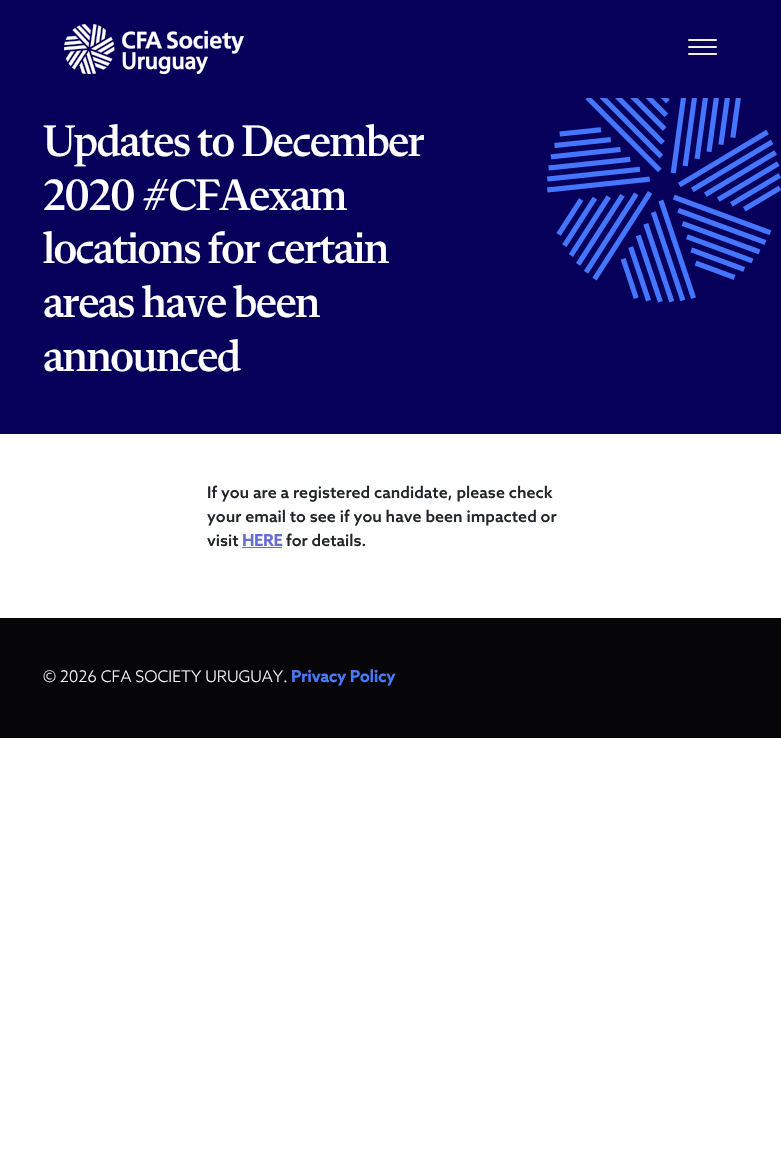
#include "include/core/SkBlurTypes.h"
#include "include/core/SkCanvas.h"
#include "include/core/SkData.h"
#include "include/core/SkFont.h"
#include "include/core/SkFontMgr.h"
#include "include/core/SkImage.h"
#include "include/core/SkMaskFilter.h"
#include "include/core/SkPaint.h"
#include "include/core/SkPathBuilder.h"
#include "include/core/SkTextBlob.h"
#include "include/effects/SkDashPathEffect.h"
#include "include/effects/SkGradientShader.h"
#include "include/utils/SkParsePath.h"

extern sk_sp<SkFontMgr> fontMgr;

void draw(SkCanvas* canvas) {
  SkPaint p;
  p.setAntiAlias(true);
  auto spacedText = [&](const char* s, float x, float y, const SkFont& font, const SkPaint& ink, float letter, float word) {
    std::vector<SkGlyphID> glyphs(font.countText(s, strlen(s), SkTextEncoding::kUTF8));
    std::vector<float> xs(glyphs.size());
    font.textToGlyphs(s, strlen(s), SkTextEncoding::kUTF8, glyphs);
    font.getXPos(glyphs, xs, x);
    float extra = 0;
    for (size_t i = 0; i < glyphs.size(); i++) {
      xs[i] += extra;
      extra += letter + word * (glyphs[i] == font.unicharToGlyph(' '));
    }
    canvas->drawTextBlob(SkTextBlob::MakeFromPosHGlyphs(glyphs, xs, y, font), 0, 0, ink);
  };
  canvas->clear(SK_ColorWHITE);
  p.setColor(SkColorSetRGB(6, 0, 90));
  canvas->drawRect(SkRect::MakeLTRB(0, 0, 781, 434), p);
  canvas->drawImageRect(SkImages::DeferredFromEncodedData(SkData::MakeFromFileName("images/1.png")), SkRect::MakeLTRB(64, 24, 244, 74), SkSamplingOptions());
  p.setColor(SkColorSetRGB(245, 236, 224));
  canvas->drawRoundRect(SkRect::MakeLTRB(688, 39, 717, 41), 1, 1, p);
  canvas->drawRoundRect(SkRect::MakeLTRB(688, 46, 717, 48), 1, 1, p);
  canvas->drawRoundRect(SkRect::MakeLTRB(688, 53, 717, 55), 1, 1, p);
  canvas->drawImageRect(SkImages::DeferredFromEncodedData(SkData::MakeFromFileName("images/2.png")), SkRect::MakeLTRB(547, 98, 781, 303), SkSamplingOptions());
  p.setColor(SkColorSetRGB(101, 109, 214));
  canvas->drawRect(SkRect::MakeLTRB(242, 547, 282, 548), p);
  p.setColor(SkColorSetRGB(6, 6, 8));
  canvas->drawRect(SkRect::MakeLTRB(0, 618, 781, 738), p);
  SkFont font1(fontMgr->matchFamilyStyle("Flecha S", SkFontStyle(500, SkFontStyle::kNormal_Width, SkFontStyle::kUpright_Slant)), 44.75f);
  font1.setSubpixel(true);
  p.setColor(SK_ColorWHITE);
  spacedText("Updates to December", 43, 156, font1, p, -1.6f, 0);
  spacedText("2020 #CFAexam", 43, 210, font1, p, -1.6f, 0);
  spacedText("locations for certain", 43, 263, font1, p, -1.6f, 0);
  spacedText("areas have been", 43, 317, font1, p, -1.6f, 0);
  spacedText("announced", 43, 371, font1, p, -1.6f, 0);
  SkFont font2(fontMgr->matchFamilyStyle("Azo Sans", SkFontStyle(500, SkFontStyle::kNormal_Width, SkFontStyle::kUpright_Slant)), 16);
  font2.setSubpixel(true);
  p.setColor(SkColorSetRGB(33, 37, 41));
  canvas->drawString("If you are a registered candidate, please check", 207, 498, font2, p);
  canvas->drawString("your email to see if you have been impacted or", 207, 522, font2, p);
  canvas->drawString("visit", 207, 546, font2, p);
  SkFont font3(fontMgr->matchFamilyStyle("Azo Sans", SkFontStyle::Bold()), 16);
  font3.setSubpixel(true);
  p.setColor(SkColorSetRGB(101, 109, 214));
  canvas->drawString("HERE", 242, 546, font3, p);
  p.setColor(SkColorSetRGB(33, 37, 41));
  canvas->drawString("for details.", 286, 546, font2, p);
  SkFont font4(fontMgr->matchFamilyStyle("Azo Sans", SkFontStyle(300, SkFontStyle::kNormal_Width, SkFontStyle::kUpright_Slant)), 16);
  font4.setSubpixel(true);
  p.setColor(SK_ColorWHITE);
  canvas->drawString("© 2026 CFA SOCIETY URUGUAY.", 43, 682, font4, p);
  p.setColor(SkColorSetRGB(71, 122, 251));
  canvas->drawString("Privacy Policy", 291, 682, font3, p);
}
